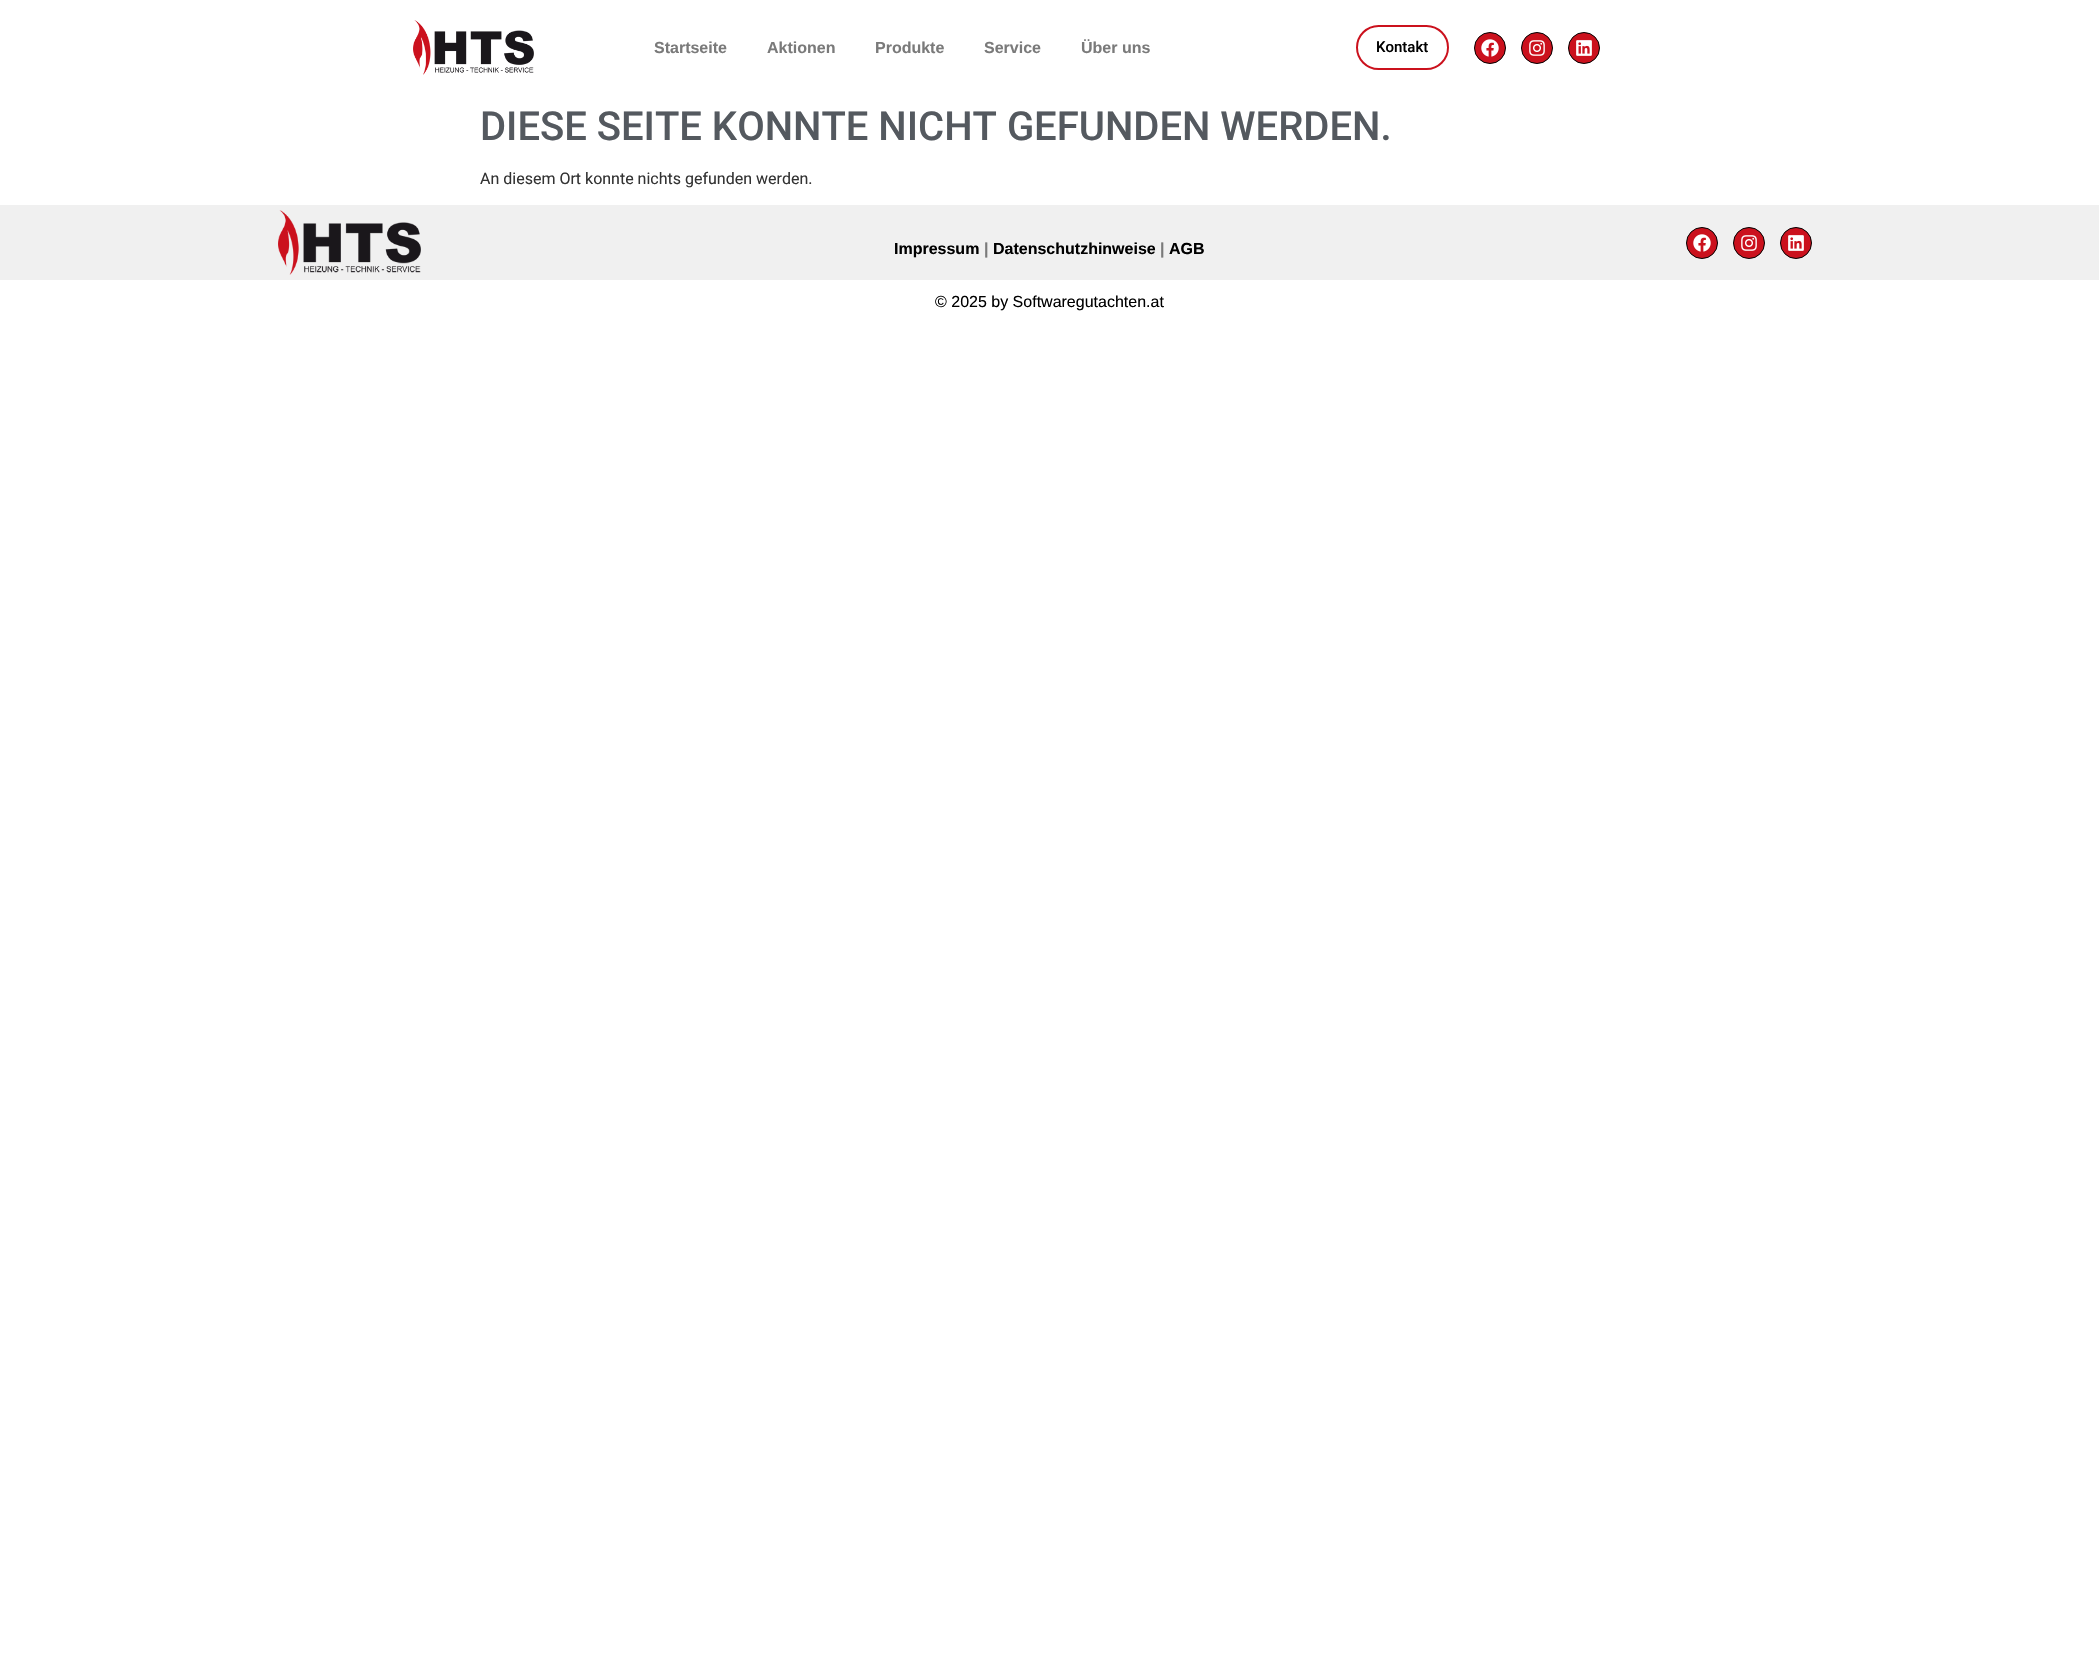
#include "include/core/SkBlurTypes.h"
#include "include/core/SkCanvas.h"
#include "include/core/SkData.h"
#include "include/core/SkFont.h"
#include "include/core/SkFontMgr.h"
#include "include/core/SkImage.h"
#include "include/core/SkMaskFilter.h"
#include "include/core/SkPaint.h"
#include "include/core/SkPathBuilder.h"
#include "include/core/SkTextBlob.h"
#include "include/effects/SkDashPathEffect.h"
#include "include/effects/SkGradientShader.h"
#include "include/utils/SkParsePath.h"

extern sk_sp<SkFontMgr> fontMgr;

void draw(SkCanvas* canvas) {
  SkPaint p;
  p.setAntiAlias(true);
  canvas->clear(SK_ColorWHITE);
  canvas->drawImageRect(SkImages::DeferredFromEncodedData(SkData::MakeFromFileName("images/1.png")), SkRect::MakeLTRB(413, 20, 534, 75), SkSamplingOptions());
  p.setStyle(SkPaint::kStroke_Style);
  p.setStrokeWidth(2);
  p.setColor(SkColorSetRGB(203, 17, 29));
  canvas->drawRoundRect(SkRect::MakeLTRB(1357, 26, 1448, 69), 21.5f, 21.5f, p);
  p.setStyle(SkPaint::kFill_Style);
  canvas->drawCircle(1490, 48, 15.5f, p);
  p.setStyle(SkPaint::kStroke_Style);
  p.setStrokeWidth(1);
  p.setColor(SK_ColorBLACK);
  canvas->drawCircle(1490, 48, 15.5f, p);
  canvas->drawImageRect(SkImages::DeferredFromEncodedData(SkData::MakeFromFileName("images/2.png")), SkRect::MakeLTRB(1481, 39, 1499, 57), SkSamplingOptions());
  p.setStyle(SkPaint::kFill_Style);
  p.setColor(SkColorSetRGB(203, 17, 29));
  canvas->drawCircle(1537, 48, 15.5f, p);
  p.setStyle(SkPaint::kStroke_Style);
  p.setColor(SK_ColorBLACK);
  canvas->drawCircle(1537, 48, 15.5f, p);
  canvas->drawImageRect(SkImages::DeferredFromEncodedData(SkData::MakeFromFileName("images/3.png")), SkRect::MakeLTRB(1529, 40, 1545, 56), SkSamplingOptions());
  p.setStyle(SkPaint::kFill_Style);
  p.setColor(SkColorSetRGB(203, 17, 29));
  canvas->drawCircle(1584, 48, 15.5f, p);
  p.setStyle(SkPaint::kStroke_Style);
  p.setColor(SK_ColorBLACK);
  canvas->drawCircle(1584, 48, 15.5f, p);
  canvas->drawImageRect(SkImages::DeferredFromEncodedData(SkData::MakeFromFileName("images/4.png")), SkRect::MakeLTRB(1576, 40, 1592, 56), SkSamplingOptions());
  p.setStyle(SkPaint::kFill_Style);
  p.setColor(SkColorSetRGB(240, 240, 240));
  canvas->drawRect(SkRect::MakeLTRB(0, 205, 2099, 280), p);
  canvas->drawImageRect(SkImages::DeferredFromEncodedData(SkData::MakeFromFileName("images/5.png")), SkRect::MakeLTRB(278, 210, 421, 275), SkSamplingOptions());
  p.setColor(SkColorSetRGB(203, 17, 29));
  canvas->drawCircle(1702, 243, 15.5f, p);
  p.setStyle(SkPaint::kStroke_Style);
  p.setColor(SK_ColorBLACK);
  canvas->drawCircle(1702, 243, 15.5f, p);
  canvas->drawImageRect(SkImages::DeferredFromEncodedData(SkData::MakeFromFileName("images/2.png")), SkRect::MakeLTRB(1693, 234, 1711, 252), SkSamplingOptions());
  p.setStyle(SkPaint::kFill_Style);
  p.setColor(SkColorSetRGB(203, 17, 29));
  canvas->drawCircle(1749, 243, 15.5f, p);
  p.setStyle(SkPaint::kStroke_Style);
  p.setColor(SK_ColorBLACK);
  canvas->drawCircle(1749, 243, 15.5f, p);
  canvas->drawImageRect(SkImages::DeferredFromEncodedData(SkData::MakeFromFileName("images/3.png")), SkRect::MakeLTRB(1741, 235, 1757, 251), SkSamplingOptions());
  p.setStyle(SkPaint::kFill_Style);
  p.setColor(SkColorSetRGB(203, 17, 29));
  canvas->drawCircle(1796, 243, 15.5f, p);
  p.setStyle(SkPaint::kStroke_Style);
  p.setColor(SK_ColorBLACK);
  canvas->drawCircle(1796, 243, 15.5f, p);
  canvas->drawImageRect(SkImages::DeferredFromEncodedData(SkData::MakeFromFileName("images/4.png")), SkRect::MakeLTRB(1788, 235, 1804, 251), SkSamplingOptions());
  SkFont font1(fontMgr->matchFamilyStyle("Liberation Sans", SkFontStyle::Bold()), 16);
  font1.setSubpixel(true);
  p.setStyle(SkPaint::kFill_Style);
  p.setColor(SkColorSetRGB(122, 122, 122));
  canvas->drawString("Startseite", 654, 53, font1, p);
  canvas->drawString("Aktionen", 767, 53, font1, p);
  canvas->drawString("Produkte", 875, 53, font1, p);
  canvas->drawString("Service", 984, 53, font1, p);
  canvas->drawString("Über uns", 1081, 53, font1, p);
  SkFont font2(fontMgr->matchFamilyStyle("Roboto", SkFontStyle(500, SkFontStyle::kNormal_Width, SkFontStyle::kUpright_Slant)), 15);
  font2.setSubpixel(true);
  p.setColor(SK_ColorBLACK);
  canvas->drawString("Kontakt", 1376, 52, font2, p);
  SkFont font3(fontMgr->matchFamilyStyle("Roboto", SkFontStyle(500, SkFontStyle::kNormal_Width, SkFontStyle::kUpright_Slant)), 40);
  font3.setSubpixel(true);
  p.setColor(SkColorSetRGB(84, 89, 95));
  canvas->drawString("DIESE SEITE KONNTE NICHT GEFUNDEN WERDEN.", 480, 140, font3, p);
  SkFont font4(fontMgr->matchFamilyStyle("Roboto", SkFontStyle::Normal()), 16);
  font4.setSubpixel(true);
  p.setColor(SkColorSetRGB(51, 51, 51));
  canvas->drawString("An diesem Ort konnte nichts gefunden werden.", 480, 184, font4, p);
  p.setColor(SK_ColorBLACK);
  canvas->drawString("Impressum", 894, 254, font1, p);
  p.setColor(SkColorSetRGB(122, 122, 122));
  canvas->drawString("|", 984, 254, font1, p);
  p.setColor(SK_ColorBLACK);
  canvas->drawString("Datenschutzhinweise", 993, 254, font1, p);
  p.setColor(SkColorSetRGB(122, 122, 122));
  canvas->drawString("|", 1160, 254, font1, p);
  p.setColor(SK_ColorBLACK);
  canvas->drawString("AGB", 1169, 254, font1, p);
  SkFont font5(fontMgr->matchFamilyStyle("Liberation Sans", SkFontStyle::Normal()), 16);
  font5.setSubpixel(true);
  canvas->drawString("© 2025 by Softwaregutachten.at", 935, 307, font5, p);
}
